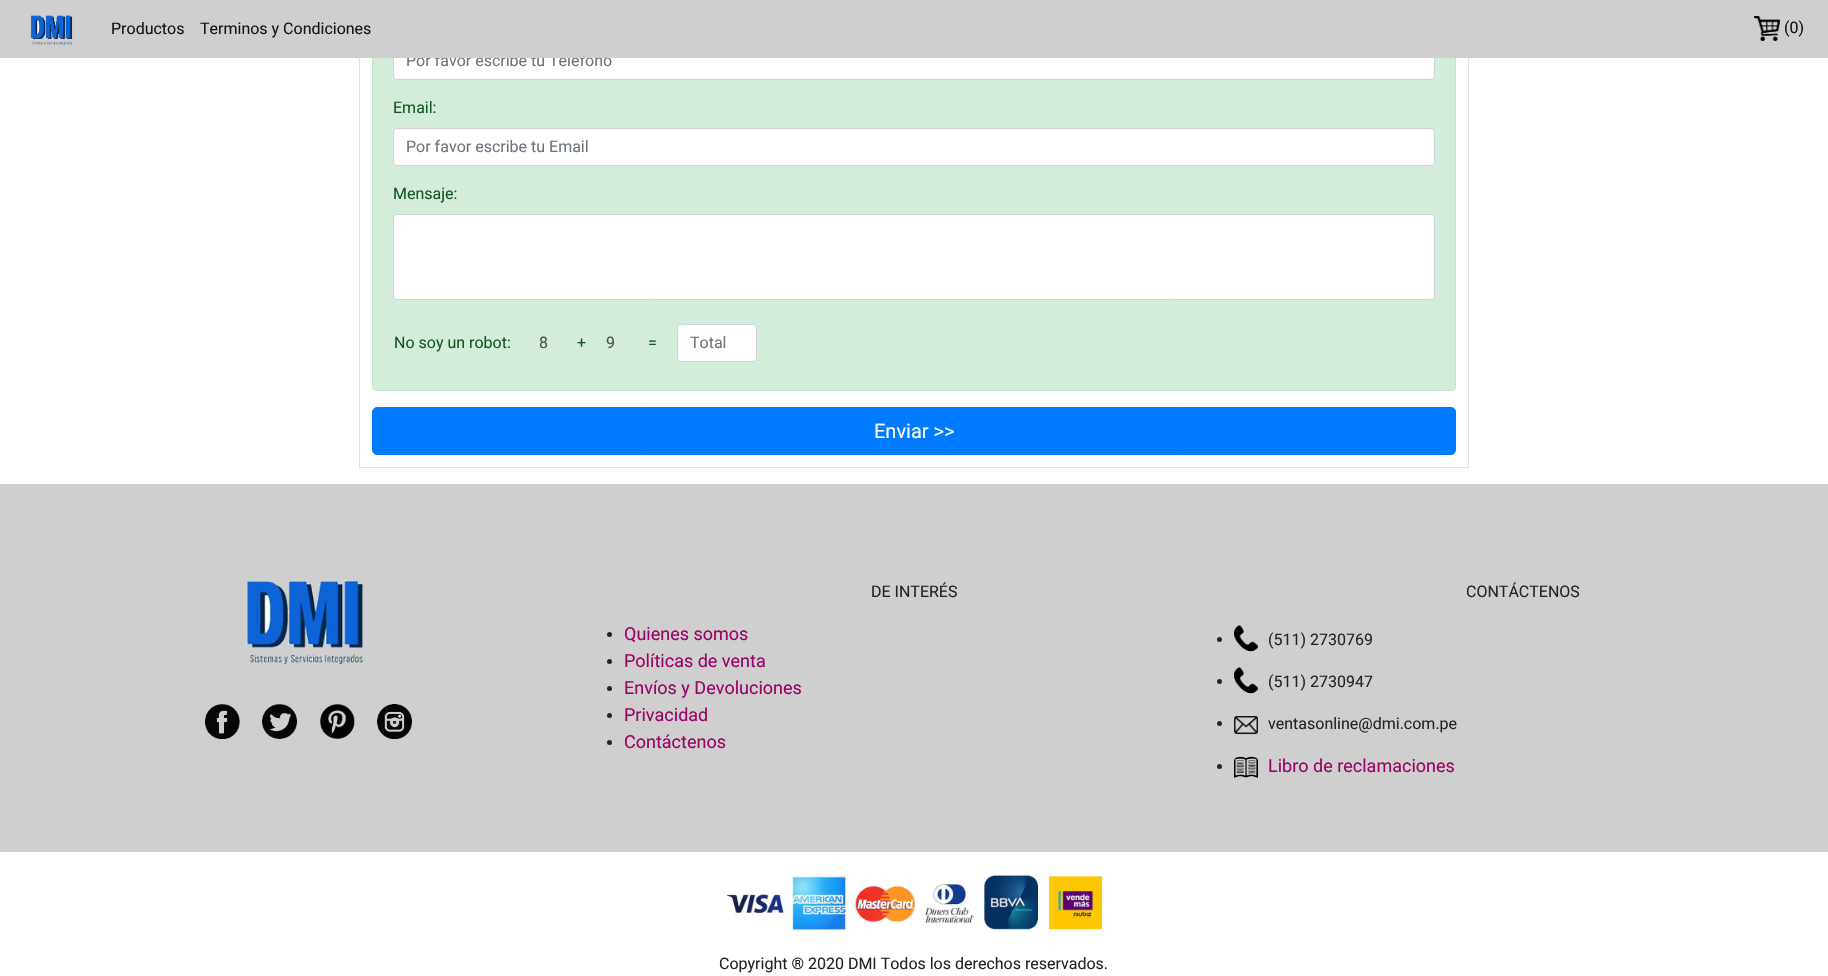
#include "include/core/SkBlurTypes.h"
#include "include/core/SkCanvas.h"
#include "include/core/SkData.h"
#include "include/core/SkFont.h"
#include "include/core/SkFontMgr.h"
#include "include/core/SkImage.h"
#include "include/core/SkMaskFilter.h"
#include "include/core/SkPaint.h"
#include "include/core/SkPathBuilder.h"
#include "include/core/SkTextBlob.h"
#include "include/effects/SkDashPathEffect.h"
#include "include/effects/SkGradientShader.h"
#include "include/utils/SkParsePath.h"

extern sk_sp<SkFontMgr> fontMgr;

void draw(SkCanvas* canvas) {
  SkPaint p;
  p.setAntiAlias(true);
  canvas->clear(SK_ColorWHITE);
  p.setColor(SkColorSetRGB(222, 226, 230));
  canvas->drawRect(SkRect::MakeLTRB(1468, 58, 1469, 468), p);
  canvas->drawRect(SkRect::MakeLTRB(359, 467, 1469, 468), p);
  canvas->drawRect(SkRect::MakeLTRB(359, 58, 360, 468), p);
  p.setColor(SkColorSetRGB(212, 237, 218));
  canvas->drawRoundRect(SkRect::MakeLTRB(372.5f, -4.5f, 1455.5f, 390.5f), 3.5f, 3.5f, p);
  p.setStyle(SkPaint::kStroke_Style);
  p.setStrokeWidth(1);
  p.setColor(SkColorSetRGB(195, 230, 203));
  canvas->drawRoundRect(SkRect::MakeLTRB(372.5f, -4.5f, 1455.5f, 390.5f), 3.5f, 3.5f, p);
  p.setStyle(SkPaint::kFill_Style);
  p.setColor(SK_ColorWHITE);
  canvas->drawRoundRect(SkRect::MakeLTRB(393.5f, 42.5f, 1434.5f, 79.5f), 3.5f, 3.5f, p);
  p.setStyle(SkPaint::kStroke_Style);
  p.setColor(SkColorSetRGB(206, 212, 218));
  canvas->drawRoundRect(SkRect::MakeLTRB(393.5f, 42.5f, 1434.5f, 79.5f), 3.5f, 3.5f, p);
  p.setStyle(SkPaint::kFill_Style);
  p.setColor(SK_ColorWHITE);
  canvas->drawRoundRect(SkRect::MakeLTRB(393.5f, 128.5f, 1434.5f, 165.5f), 3.5f, 3.5f, p);
  p.setStyle(SkPaint::kStroke_Style);
  p.setColor(SkColorSetRGB(206, 212, 218));
  canvas->drawRoundRect(SkRect::MakeLTRB(393.5f, 128.5f, 1434.5f, 165.5f), 3.5f, 3.5f, p);
  p.setStyle(SkPaint::kFill_Style);
  p.setColor(SK_ColorWHITE);
  canvas->drawRoundRect(SkRect::MakeLTRB(393.5f, 214.5f, 1434.5f, 299.5f), 3.5f, 3.5f, p);
  p.setStyle(SkPaint::kStroke_Style);
  p.setColor(SkColorSetRGB(206, 212, 218));
  canvas->drawRoundRect(SkRect::MakeLTRB(393.5f, 214.5f, 1434.5f, 299.5f), 3.5f, 3.5f, p);
  p.setStyle(SkPaint::kFill_Style);
  p.setColor(SK_ColorWHITE);
  canvas->drawRoundRect(SkRect::MakeLTRB(677.5f, 324.5f, 756.5f, 361.5f), 3.5f, 3.5f, p);
  p.setStyle(SkPaint::kStroke_Style);
  p.setColor(SkColorSetRGB(206, 212, 218));
  canvas->drawRoundRect(SkRect::MakeLTRB(677.5f, 324.5f, 756.5f, 361.5f), 3.5f, 3.5f, p);
  p.setStyle(SkPaint::kFill_Style);
  p.setColor(SkColorSetRGB(0, 123, 255));
  canvas->drawRoundRect(SkRect::MakeLTRB(372.5f, 407.5f, 1455.5f, 454.5f), 4.5f, 4.5f, p);
  p.setStyle(SkPaint::kStroke_Style);
  canvas->drawRoundRect(SkRect::MakeLTRB(372.5f, 407.5f, 1455.5f, 454.5f), 4.5f, 4.5f, p);
  p.setStyle(SkPaint::kFill_Style);
  p.setColor(SkColorSetRGB(207, 207, 207));
  canvas->drawRect(SkRect::MakeLTRB(0, 484, 1828, 852), p);
  canvas->drawImageRect(SkImages::DeferredFromEncodedData(SkData::MakeFromFileName("images/3.png")), SkRect::MakeLTRB(246, 580, 363, 664), SkSamplingOptions());
  canvas->drawImageRect(SkImages::DeferredFromEncodedData(SkData::MakeFromFileName("images/4.png")), SkRect::MakeLTRB(205, 704, 240, 739), SkSamplingOptions());
  canvas->drawImageRect(SkImages::DeferredFromEncodedData(SkData::MakeFromFileName("images/5.png")), SkRect::MakeLTRB(262, 704, 297, 739), SkSamplingOptions());
  canvas->drawImageRect(SkImages::DeferredFromEncodedData(SkData::MakeFromFileName("images/6.png")), SkRect::MakeLTRB(320, 704, 355, 739), SkSamplingOptions());
  canvas->drawImageRect(SkImages::DeferredFromEncodedData(SkData::MakeFromFileName("images/7.png")), SkRect::MakeLTRB(377, 704, 412, 739), SkSamplingOptions());
  p.setColor(SkColorSetRGB(33, 37, 41));
  canvas->drawCircle(609.5f, 634.5f, 2.5f, p);
  canvas->drawCircle(609.5f, 661.5f, 2.5f, p);
  canvas->drawCircle(609.5f, 688.5f, 2.5f, p);
  canvas->drawCircle(609.5f, 715.5f, 2.5f, p);
  canvas->drawCircle(609.5f, 742.5f, 2.5f, p);
  canvas->drawCircle(1219.5f, 639.5f, 2.5f, p);
  canvas->drawImageRect(SkImages::DeferredFromEncodedData(SkData::MakeFromFileName("images/8.png")), SkRect::MakeLTRB(1234, 625, 1258, 652), SkSamplingOptions());
  canvas->drawCircle(1219.5f, 681.5f, 2.5f, p);
  canvas->drawImageRect(SkImages::DeferredFromEncodedData(SkData::MakeFromFileName("images/8.png")), SkRect::MakeLTRB(1234, 667, 1258, 694), SkSamplingOptions());
  canvas->drawCircle(1219.5f, 723.5f, 2.5f, p);
  canvas->drawImageRect(SkImages::DeferredFromEncodedData(SkData::MakeFromFileName("images/9.png")), SkRect::MakeLTRB(1234, 716, 1258, 735), SkSamplingOptions());
  canvas->drawCircle(1219.5f, 766.5f, 2.5f, p);
  canvas->drawImageRect(SkImages::DeferredFromEncodedData(SkData::MakeFromFileName("images/10.png")), SkRect::MakeLTRB(1234, 756, 1258, 778), SkSamplingOptions());
  canvas->drawImageRect(SkImages::DeferredFromEncodedData(SkData::MakeFromFileName("images/11.png")), SkRect::MakeLTRB(726, 874, 1104, 932), SkSamplingOptions());
  SkFont font1(fontMgr->matchFamilyStyle("Roboto", SkFontStyle::Normal()), 16);
  font1.setSubpixel(true);
  p.setColor(SkColorSetRGB(108, 117, 125));
  canvas->drawString("Por favor escribe tu Telefono", 406, 66, font1, p);
  p.setColor(SkColorSetRGB(207, 207, 207));
  canvas->drawRect(SkRect::MakeLTRB(0, 0, 1828, 58), p);
  p.setColor(SkColorSetRGB(21, 21, 21));
  canvas->drawString("(0)", 1784, 33, font1, p);
  canvas->drawImageRect(SkImages::DeferredFromEncodedData(SkData::MakeFromFileName("images/2.png")), SkRect::MakeLTRB(1754, 16, 1780, 41), SkSamplingOptions());
  canvas->drawString("Terminos y Condiciones", 200, 34, font1, p);
  canvas->drawString("Productos", 111, 34, font1, p);
  canvas->drawImageRect(SkImages::DeferredFromEncodedData(SkData::MakeFromFileName("images/1.png")), SkRect::MakeLTRB(30, 15, 73, 45), SkSamplingOptions());
  p.setColor(SkColorSetRGB(21, 87, 36));
  canvas->drawString("Email:", 393, 113, font1, p);
  p.setColor(SkColorSetRGB(108, 117, 125));
  canvas->drawString("Por favor escribe tu Email", 406, 152, font1, p);
  p.setColor(SkColorSetRGB(21, 87, 36));
  canvas->drawString("Mensaje:", 393, 199, font1, p);
  canvas->drawString("No soy un robot:", 394, 348, font1, p);
  p.setColor(SkColorSetRGB(73, 80, 87));
  canvas->drawString("8", 539, 348, font1, p);
  p.setColor(SkColorSetRGB(21, 87, 36));
  canvas->drawString("+", 577, 348, font1, p);
  p.setColor(SkColorSetRGB(73, 80, 87));
  canvas->drawString("9", 606, 348, font1, p);
  p.setColor(SkColorSetRGB(21, 87, 36));
  canvas->drawString("=", 648, 348, font1, p);
  p.setColor(SkColorSetRGB(108, 117, 125));
  canvas->drawString("Total", 690, 348, font1, p);
  SkFont font2(fontMgr->matchFamilyStyle("Roboto", SkFontStyle::Normal()), 20);
  font2.setSubpixel(true);
  p.setColor(SK_ColorWHITE);
  canvas->drawString("Enviar >>", 874, 438, font2, p);
  p.setColor(SkColorSetRGB(33, 37, 41));
  canvas->drawString("DE INTERÉS", 871, 597, font1, p);
  SkFont font3(fontMgr->matchFamilyStyle("Roboto", SkFontStyle::Normal()), 18);
  font3.setSubpixel(true);
  p.setColor(SkColorSetRGB(154, 3, 101));
  canvas->drawString("Quienes somos", 624, 640, font3, p);
  canvas->drawString("Políticas de venta", 624, 667, font3, p);
  canvas->drawString("Envíos y Devoluciones", 624, 694, font3, p);
  canvas->drawString("Privacidad", 624, 721, font3, p);
  canvas->drawString("Contáctenos", 624, 748, font3, p);
  p.setColor(SkColorSetRGB(33, 37, 41));
  canvas->drawString("CONTÁCTENOS", 1466, 597, font1, p);
  canvas->drawString("(511) 2730769", 1268, 645, font1, p);
  canvas->drawString("(511) 2730947", 1268, 687, font1, p);
  canvas->drawString("ventasonline@dmi.com.pe", 1268, 729, font1, p);
  p.setColor(SkColorSetRGB(154, 3, 101));
  canvas->drawString("Libro de reclamaciones", 1268, 772, font3, p);
  p.setColor(SkColorSetRGB(33, 37, 41));
  canvas->drawString("Copyright ® 2020 DMI Todos los derechos reservados.", 719, 969, font1, p);
}
